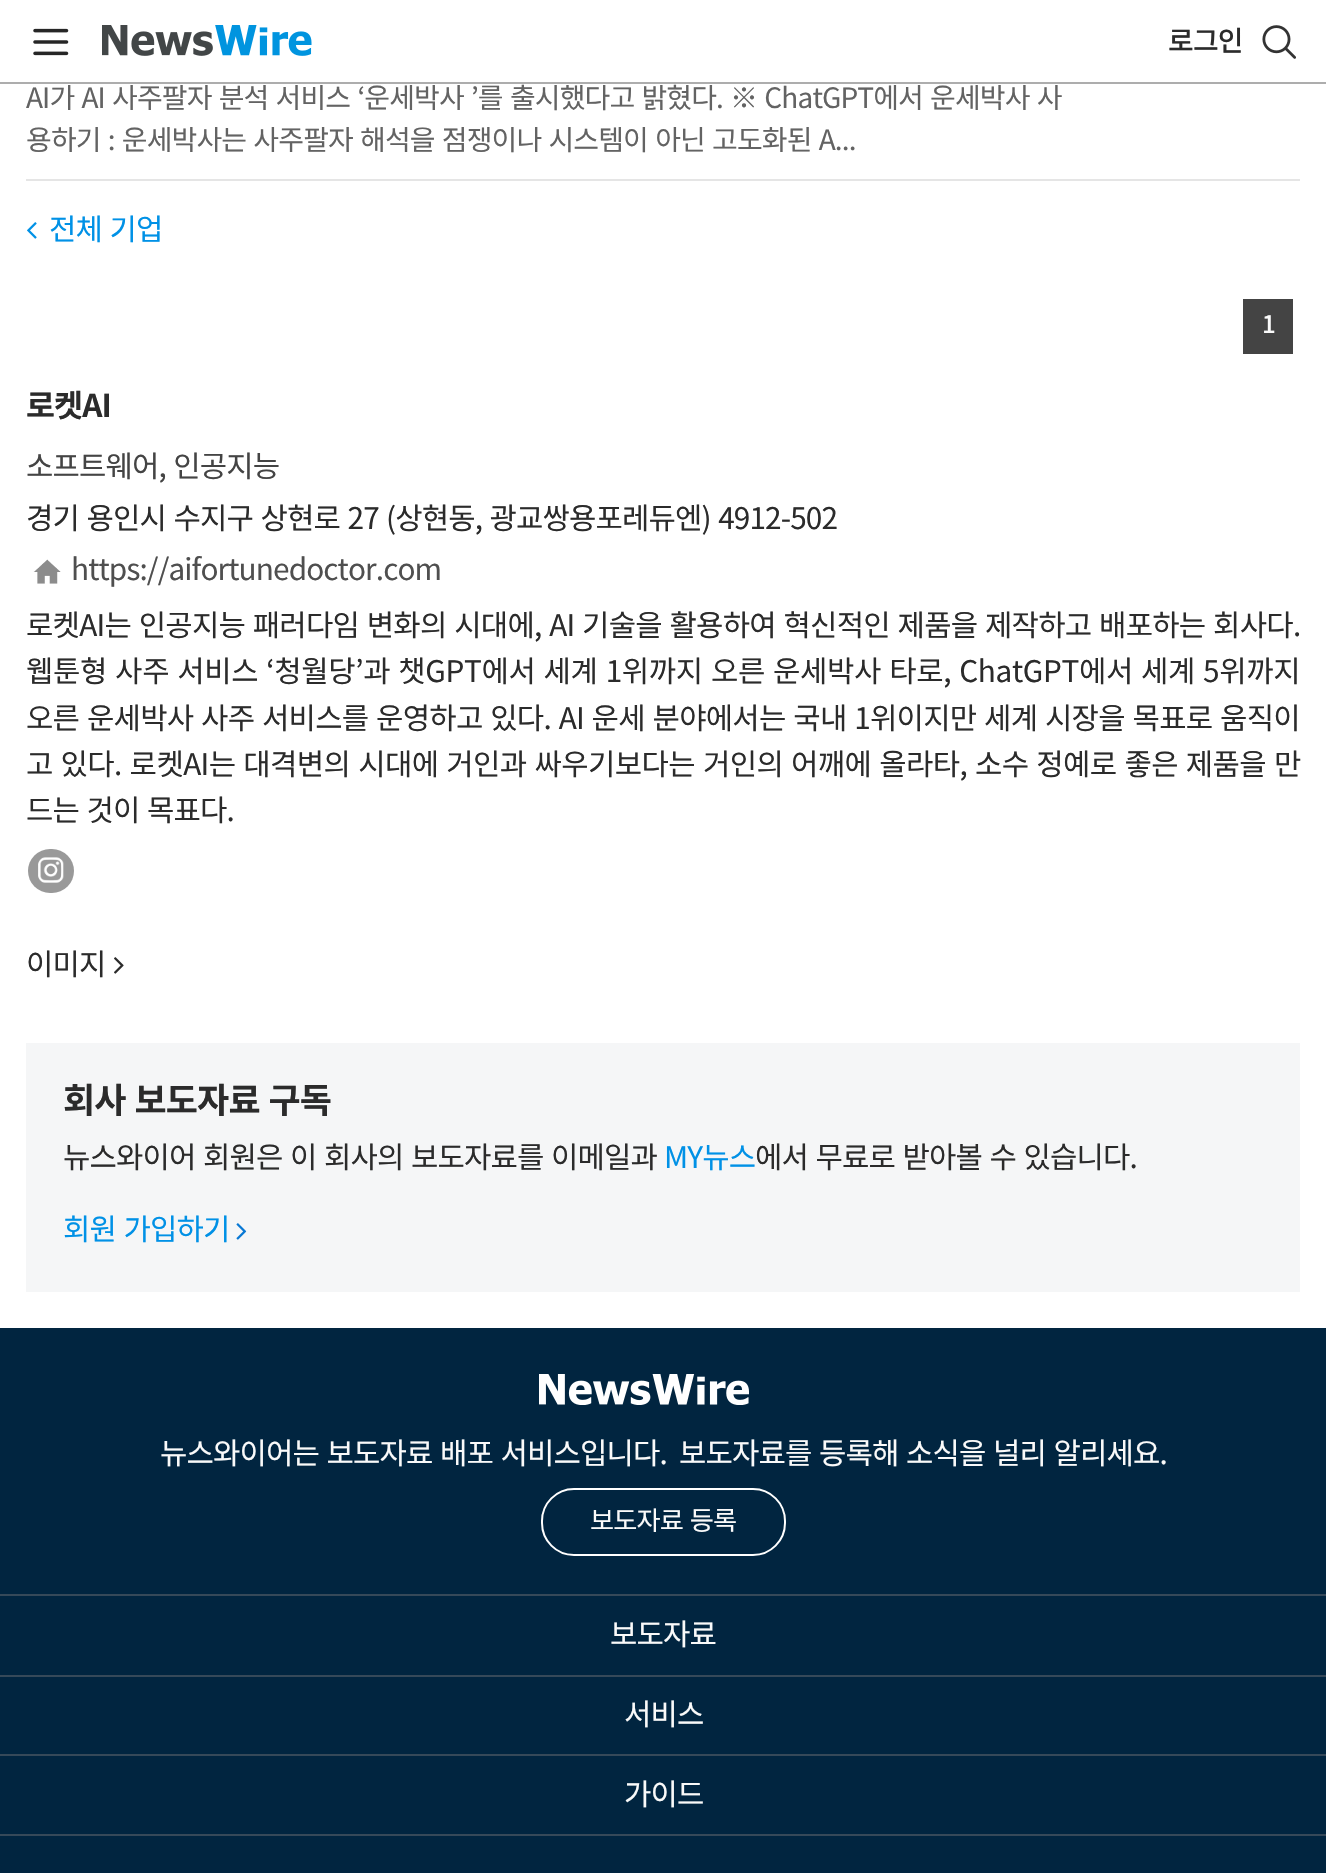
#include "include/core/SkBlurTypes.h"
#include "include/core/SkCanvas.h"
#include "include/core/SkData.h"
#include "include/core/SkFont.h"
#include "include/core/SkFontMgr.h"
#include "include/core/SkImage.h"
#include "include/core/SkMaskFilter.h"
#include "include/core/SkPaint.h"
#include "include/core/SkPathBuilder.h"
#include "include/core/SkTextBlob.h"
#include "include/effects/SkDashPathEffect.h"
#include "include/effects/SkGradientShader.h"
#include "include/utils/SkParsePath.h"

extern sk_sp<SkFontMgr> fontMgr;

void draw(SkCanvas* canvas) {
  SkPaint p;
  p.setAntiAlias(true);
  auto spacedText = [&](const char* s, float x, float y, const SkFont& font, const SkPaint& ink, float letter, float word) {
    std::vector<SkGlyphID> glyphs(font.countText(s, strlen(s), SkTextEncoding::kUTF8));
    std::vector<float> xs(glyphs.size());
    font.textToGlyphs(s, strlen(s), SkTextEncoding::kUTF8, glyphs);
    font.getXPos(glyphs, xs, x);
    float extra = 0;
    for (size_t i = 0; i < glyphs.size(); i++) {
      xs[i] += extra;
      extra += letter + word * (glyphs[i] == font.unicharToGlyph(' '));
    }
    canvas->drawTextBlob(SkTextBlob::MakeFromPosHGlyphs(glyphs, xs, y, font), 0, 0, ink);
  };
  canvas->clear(SK_ColorWHITE);
  p.setColor(SkColorSetRGB(173, 173, 173));
  canvas->drawRect(SkRect::MakeLTRB(0, 82, 1326, 84), p);
  canvas->drawImageRect(SkImages::DeferredFromEncodedData(SkData::MakeFromFileName("images/1.png")), SkRect::MakeLTRB(33, 28, 69, 56), SkSamplingOptions());
  canvas->drawImageRect(SkImages::DeferredFromEncodedData(SkData::MakeFromFileName("images/2.png")), SkRect::MakeLTRB(102, 25, 312, 56), SkSamplingOptions());
  canvas->drawImageRect(SkImages::DeferredFromEncodedData(SkData::MakeFromFileName("images/3.png")), SkRect::MakeLTRB(1262, 25, 1296, 59), SkSamplingOptions());
  p.setColor(SkColorSetRGB(229, 229, 229));
  canvas->drawRect(SkRect::MakeLTRB(26, 179, 1300, 181), p);
  canvas->drawImageRect(SkImages::DeferredFromEncodedData(SkData::MakeFromFileName("images/4.png")), SkRect::MakeLTRB(27, 222, 37, 239), SkSamplingOptions());
  p.setColor(SkColorSetRGB(68, 68, 68));
  canvas->drawRect(SkRect::MakeLTRB(1243, 299, 1293, 354), p);
  canvas->drawImageRect(SkImages::DeferredFromEncodedData(SkData::MakeFromFileName("images/5.png")), SkRect::MakeLTRB(33, 559, 61, 584), SkSamplingOptions());
  p.setColor(SkColorSetRGB(153, 153, 153));
  canvas->drawRoundRect(SkRect::MakeLTRB(28, 849, 74, 893), 22, 22, p);
  canvas->drawImageRect(SkImages::DeferredFromEncodedData(SkData::MakeFromFileName("images/6.png")), SkRect::MakeLTRB(38, 857, 64, 883), SkSamplingOptions());
  canvas->drawImageRect(SkImages::DeferredFromEncodedData(SkData::MakeFromFileName("images/7.png")), SkRect::MakeLTRB(114, 957, 124, 974), SkSamplingOptions());
  p.setColor(SkColorSetRGB(245, 246, 247));
  canvas->drawRect(SkRect::MakeLTRB(26, 1043, 1300, 1292), p);
  canvas->drawImageRect(SkImages::DeferredFromEncodedData(SkData::MakeFromFileName("images/8.png")), SkRect::MakeLTRB(236, 1223, 247, 1240), SkSamplingOptions());
  p.setColor(SkColorSetRGB(1, 37, 64));
  canvas->drawRect(SkRect::MakeLTRB(0, 1328, 1326, 1873), p);
  p.setColor(SkColorSetRGB(54, 73, 89));
  canvas->drawRect(SkRect::MakeLTRB(0, 1594, 1326, 1596), p);
  canvas->drawImageRect(SkImages::DeferredFromEncodedData(SkData::MakeFromFileName("images/9.png")), SkRect::MakeLTRB(539, 1374, 749, 1405), SkSamplingOptions());
  p.setStyle(SkPaint::kStroke_Style);
  p.setStrokeWidth(2);
  p.setColor(SK_ColorWHITE);
  canvas->drawRoundRect(SkRect::MakeLTRB(542, 1489, 785, 1555), 32, 32, p);
  p.setStyle(SkPaint::kFill_Style);
  p.setColor(SkColorSetRGB(54, 73, 89));
  canvas->drawRect(SkRect::MakeLTRB(0, 1675, 1326, 1677), p);
  canvas->drawRect(SkRect::MakeLTRB(0, 1754, 1326, 1756), p);
  canvas->drawRect(SkRect::MakeLTRB(0, 1834, 1326, 1836), p);
  SkFont font1(fontMgr->matchFamilyStyle("Noto Sans KR", SkFontStyle(500, SkFontStyle::kNormal_Width, SkFontStyle::kUpright_Slant)), 28);
  font1.setSubpixel(true);
  p.setColor(SkColorSetRGB(43, 43, 43));
  spacedText("로그인", 1168, 51, font1, p, -0.88f, 0);
  SkFont font2(fontMgr->matchFamilyStyle("Noto Sans KR", SkFontStyle::Normal()), 28);
  font2.setSubpixel(true);
  p.setColor(SkColorSetRGB(99, 99, 99));
  spacedText("AI가 AI 사주팔자 분석 서비스 ‘운세박사 ’를 출시했다고 밝혔다. ※ ChatGPT에서 운세박사 사", 26, 108, font2, p, -0.88f, 1.75f);
  spacedText("용하기 : 운세박사는 사주팔자 해석을 점쟁이나 시스템이 아닌 고도화된 A...", 26, 150, font2, p, -0.88f, 1.75f);
  SkFont font3(fontMgr->matchFamilyStyle("Noto Sans KR", SkFontStyle::Normal()), 29.75f);
  font3.setSubpixel(true);
  p.setColor(SkColorSetRGB(0, 145, 230));
  spacedText("전체 기업", 49, 240, font3, p, -0.88f, 1.75f);
  SkFont font4(fontMgr->matchFamilyStyle("Noto Sans KR", SkFontStyle(500, SkFontStyle::kNormal_Width, SkFontStyle::kUpright_Slant)), 24);
  font4.setSubpixel(true);
  p.setColor(SkColorSetRGB(250, 250, 250));
  spacedText("1", 1262, 333, font4, p, -0.88f, 0);
  SkFont font5(fontMgr->matchFamilyStyle("Noto Sans KR", SkFontStyle::Bold()), 31.5f);
  font5.setSubpixel(true);
  p.setColor(SkColorSetRGB(43, 43, 43));
  spacedText("로켓AI", 26, 417, font5, p, -0.88f, 0);
  p.setColor(SkColorSetRGB(68, 68, 68));
  spacedText("소프트웨어, 인공지능", 26, 477, font3, p, -0.88f, 1.75f);
  p.setColor(SkColorSetRGB(43, 43, 43));
  spacedText("경기 용인시 수지구 상현로 27", 26, 529, font3, p, -0.88f, 1.75f);
  spacedText("(상현동, 광교쌍용포레듀엔) 4912-502", 386, 529, font3, p, -0.88f, 1.75f);
  p.setColor(SkColorSetRGB(79, 79, 79));
  spacedText("https://aifortunedoctor.com", 71, 580, font3, p, -0.88f, 0);
  p.setColor(SkColorSetRGB(43, 43, 43));
  spacedText("로켓AI는 인공지능 패러다임 변화의 시대에, AI 기술을 활용하여 혁신적인 제품을 제작하고 배포하는 회사다.", 26, 636, font3, p, -0.77f, 1.75f);
  spacedText("웹툰형 사주 서비스 ‘청월당’과 챗GPT에서 세계 1위까지 오른 운세박사 타로, ChatGPT에서 세계 5위까지", 26, 682, font3, p, -0.35f, 1.75f);
  spacedText("오른 운세박사 사주 서비스를 운영하고 있다. AI 운세 분야에서는 국내 1위이지만 세계 시장을 목표로 움직이", 26, 729, font3, p, -0.75f, 1.75f);
  spacedText("고 있다. 로켓AI는 대격변의 시대에 거인과 싸우기보다는 거인의 어깨에 올라타, 소수 정예로 좋은 제품을 만", 26, 775, font3, p, -0.6f, 1.75f);
  spacedText("드는 것이 목표다.", 26, 821, font3, p, -0.88f, 1.75f);
  spacedText("이미지", 26, 975, font3, p, -0.88f, 0);
  SkFont font6(fontMgr->matchFamilyStyle("Noto Sans KR", SkFontStyle::Bold()), 35);
  font6.setSubpixel(true);
  spacedText("회사 보도자료 구독", 63, 1113, font6, p, -0.88f, 1.75f);
  spacedText("뉴스와이어 회원은 이 회사의 보도자료를 이메일과", 63, 1168, font3, p, -0.88f, 1.75f);
  p.setColor(SkColorSetRGB(0, 145, 230));
  spacedText("MY뉴스", 664, 1168, font3, p, -0.88f, 0);
  p.setColor(SkColorSetRGB(43, 43, 43));
  spacedText("에서 무료로 받아볼 수 있습니다.", 755, 1168, font3, p, -0.88f, 1.75f);
  p.setColor(SkColorSetRGB(0, 145, 230));
  spacedText("회원 가입하기", 63, 1240, font3, p, -0.88f, 1.75f);
  p.setColor(SkColorSetRGB(250, 250, 250));
  spacedText("뉴스와이어는 보도자료 배포 서비스입니다.", 160, 1464, font3, p, -0.88f, 1.75f);
  spacedText("보도자료를 등록해 소식을 널리 알리세요.", 679, 1464, font3, p, -0.88f, 1.75f);
  SkFont font7(fontMgr->matchFamilyStyle("Noto Sans KR", SkFontStyle::Normal()), 26.25f);
  font7.setSubpixel(true);
  spacedText("보도자료 등록", 590, 1530, font7, p, -0.88f, 1.75f);
  spacedText("보도자료", 610, 1645, font3, p, -0.88f, 0);
  spacedText("서비스", 624, 1725, font3, p, -0.88f, 0);
  spacedText("가이드", 624, 1805, font3, p, -0.88f, 0);
}
